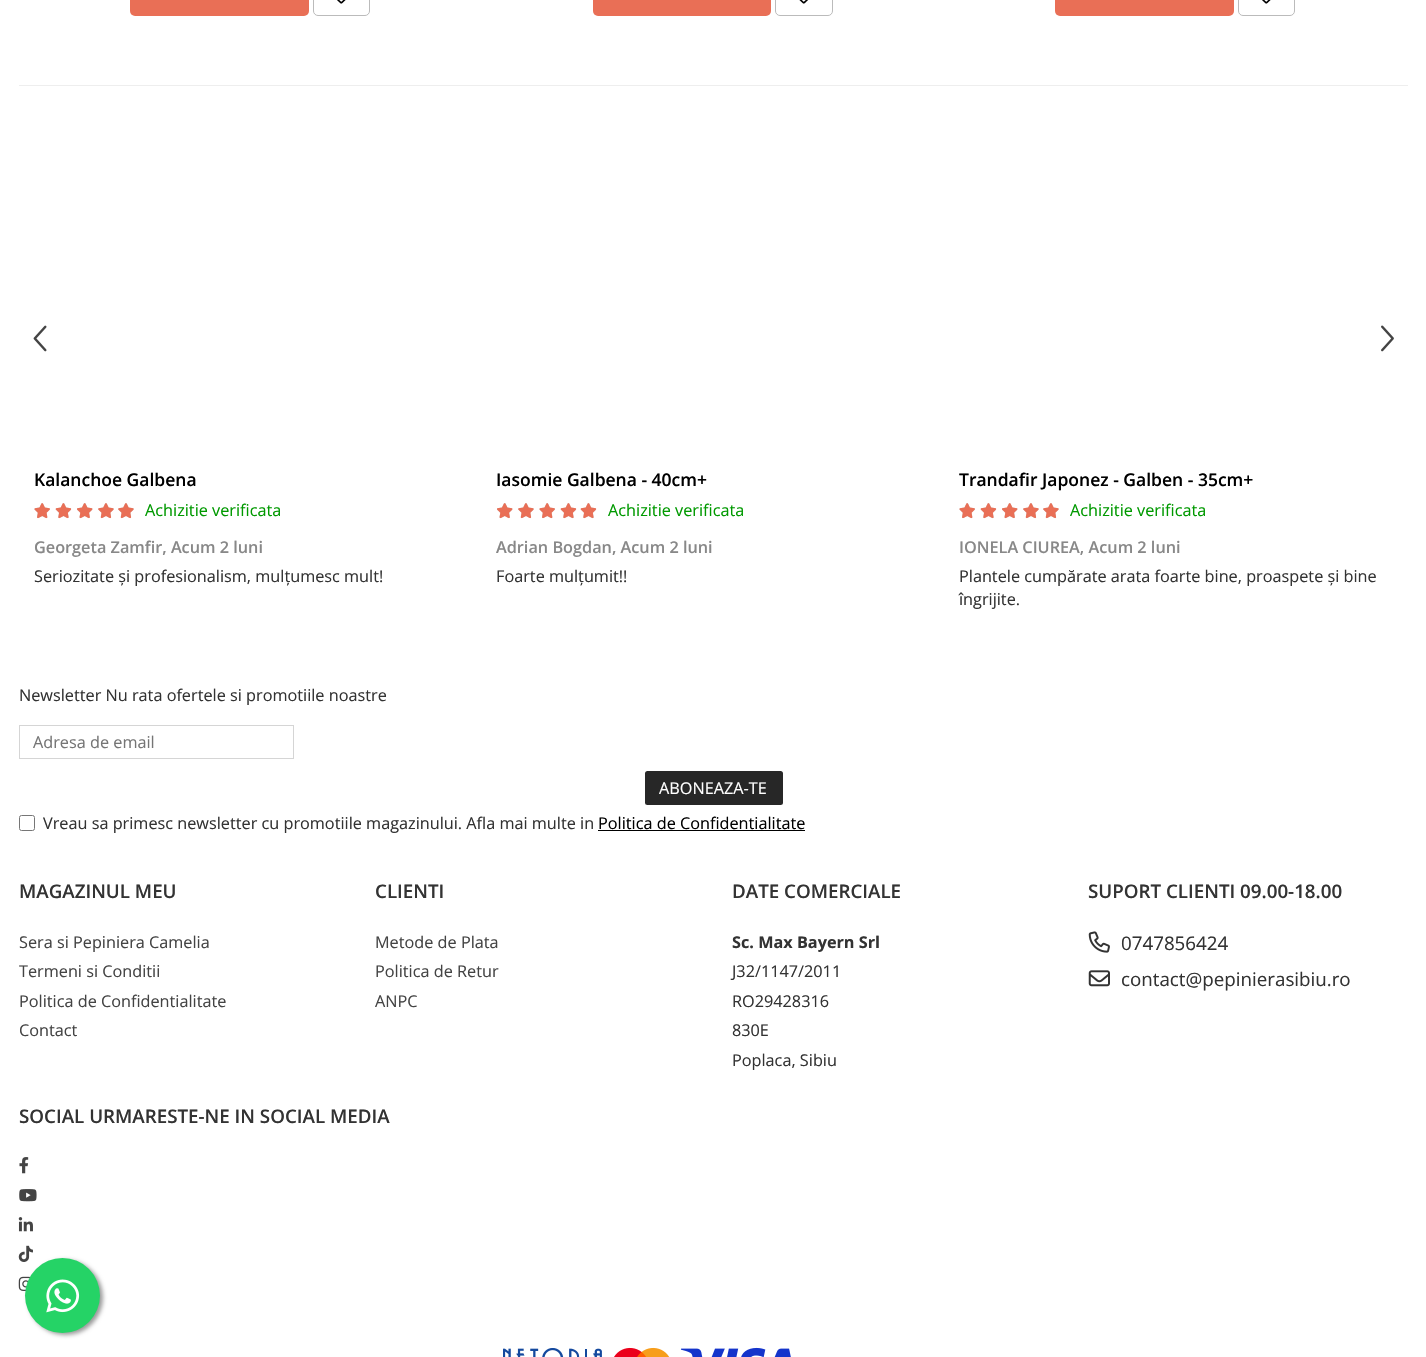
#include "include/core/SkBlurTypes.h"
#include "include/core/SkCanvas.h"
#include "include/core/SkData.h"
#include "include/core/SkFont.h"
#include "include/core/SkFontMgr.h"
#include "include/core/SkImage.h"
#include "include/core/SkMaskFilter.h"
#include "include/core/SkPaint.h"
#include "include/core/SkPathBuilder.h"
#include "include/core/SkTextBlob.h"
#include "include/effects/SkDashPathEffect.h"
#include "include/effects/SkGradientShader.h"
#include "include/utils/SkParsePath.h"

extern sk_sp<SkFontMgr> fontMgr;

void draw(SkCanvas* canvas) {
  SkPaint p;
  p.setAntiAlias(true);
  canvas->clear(SK_ColorWHITE);
  p.setColor(SkColorSetRGB(233, 111, 86));
  canvas->drawRoundRect(SkRect::MakeLTRB(130, -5, 309, 16), 5, 5, p);
  p.setStyle(SkPaint::kStroke_Style);
  p.setStrokeWidth(1);
  p.setColor(SkColorSetRGB(187, 187, 187));
  canvas->drawRoundRect(SkRect::MakeLTRB(313.5f, -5.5f, 369.5f, 15.5f), 4.5f, 4.5f, p);
  canvas->drawImageRect(SkImages::DeferredFromEncodedData(SkData::MakeFromFileName("images/1.png")), SkRect::MakeLTRB(337, 0, 346, 4), SkSamplingOptions());
  p.setStyle(SkPaint::kFill_Style);
  p.setColor(SkColorSetRGB(233, 111, 86));
  canvas->drawRoundRect(SkRect::MakeLTRB(593, -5, 771, 16), 5, 5, p);
  p.setStyle(SkPaint::kStroke_Style);
  p.setColor(SkColorSetRGB(187, 187, 187));
  canvas->drawRoundRect(SkRect::MakeLTRB(775.5f, -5.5f, 832.5f, 15.5f), 4.5f, 4.5f, p);
  canvas->drawImageRect(SkImages::DeferredFromEncodedData(SkData::MakeFromFileName("images/2.png")), SkRect::MakeLTRB(799, 0, 808, 4), SkSamplingOptions());
  p.setStyle(SkPaint::kFill_Style);
  p.setColor(SkColorSetRGB(233, 111, 86));
  canvas->drawRoundRect(SkRect::MakeLTRB(1055, -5, 1234, 16), 5, 5, p);
  p.setStyle(SkPaint::kStroke_Style);
  p.setColor(SkColorSetRGB(187, 187, 187));
  canvas->drawRoundRect(SkRect::MakeLTRB(1238.5f, -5.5f, 1294.5f, 15.5f), 4.5f, 4.5f, p);
  canvas->drawImageRect(SkImages::DeferredFromEncodedData(SkData::MakeFromFileName("images/1.png")), SkRect::MakeLTRB(1262, 0, 1271, 4), SkSamplingOptions());
  p.setStyle(SkPaint::kFill_Style);
  p.setColor(SkColorSetRGB(238, 238, 238));
  canvas->drawRect(SkRect::MakeLTRB(19, 85, 1408, 86), p);
  canvas->drawImageRect(SkImages::DeferredFromEncodedData(SkData::MakeFromFileName("images/3.png")), SkRect::MakeLTRB(33, 325, 47, 352), SkSamplingOptions());
  canvas->drawImageRect(SkImages::DeferredFromEncodedData(SkData::MakeFromFileName("images/4.png")), SkRect::MakeLTRB(1381, 325, 1394, 352), SkSamplingOptions());
  canvas->drawImageRect(SkImages::DeferredFromEncodedData(SkData::MakeFromFileName("images/5.png")), SkRect::MakeLTRB(34, 503, 50, 518), SkSamplingOptions());
  canvas->drawImageRect(SkImages::DeferredFromEncodedData(SkData::MakeFromFileName("images/6.png")), SkRect::MakeLTRB(34, 503, 50, 519), SkSamplingOptions());
  canvas->drawImageRect(SkImages::DeferredFromEncodedData(SkData::MakeFromFileName("images/10.png")), SkRect::MakeLTRB(55, 503, 71, 518), SkSamplingOptions());
  canvas->drawImageRect(SkImages::DeferredFromEncodedData(SkData::MakeFromFileName("images/7.png")), SkRect::MakeLTRB(55, 503, 72, 519), SkSamplingOptions());
  canvas->drawImageRect(SkImages::DeferredFromEncodedData(SkData::MakeFromFileName("images/11.png")), SkRect::MakeLTRB(77, 503, 93, 518), SkSamplingOptions());
  canvas->drawImageRect(SkImages::DeferredFromEncodedData(SkData::MakeFromFileName("images/8.png")), SkRect::MakeLTRB(77, 503, 93, 519), SkSamplingOptions());
  canvas->drawImageRect(SkImages::DeferredFromEncodedData(SkData::MakeFromFileName("images/12.png")), SkRect::MakeLTRB(98, 503, 114, 518), SkSamplingOptions());
  canvas->drawImageRect(SkImages::DeferredFromEncodedData(SkData::MakeFromFileName("images/9.png")), SkRect::MakeLTRB(98, 503, 114, 519), SkSamplingOptions());
  canvas->drawImageRect(SkImages::DeferredFromEncodedData(SkData::MakeFromFileName("images/12.png")), SkRect::MakeLTRB(118, 503, 134, 518), SkSamplingOptions());
  canvas->drawImageRect(SkImages::DeferredFromEncodedData(SkData::MakeFromFileName("images/9.png")), SkRect::MakeLTRB(118, 503, 134, 519), SkSamplingOptions());
  canvas->drawImageRect(SkImages::DeferredFromEncodedData(SkData::MakeFromFileName("images/11.png")), SkRect::MakeLTRB(497, 503, 513, 518), SkSamplingOptions());
  canvas->drawImageRect(SkImages::DeferredFromEncodedData(SkData::MakeFromFileName("images/8.png")), SkRect::MakeLTRB(497, 503, 513, 519), SkSamplingOptions());
  canvas->drawImageRect(SkImages::DeferredFromEncodedData(SkData::MakeFromFileName("images/12.png")), SkRect::MakeLTRB(518, 503, 534, 518), SkSamplingOptions());
  canvas->drawImageRect(SkImages::DeferredFromEncodedData(SkData::MakeFromFileName("images/9.png")), SkRect::MakeLTRB(518, 503, 534, 519), SkSamplingOptions());
  canvas->drawImageRect(SkImages::DeferredFromEncodedData(SkData::MakeFromFileName("images/5.png")), SkRect::MakeLTRB(539, 503, 555, 518), SkSamplingOptions());
  canvas->drawImageRect(SkImages::DeferredFromEncodedData(SkData::MakeFromFileName("images/6.png")), SkRect::MakeLTRB(539, 503, 555, 519), SkSamplingOptions());
  canvas->drawImageRect(SkImages::DeferredFromEncodedData(SkData::MakeFromFileName("images/10.png")), SkRect::MakeLTRB(560, 503, 576, 518), SkSamplingOptions());
  canvas->drawImageRect(SkImages::DeferredFromEncodedData(SkData::MakeFromFileName("images/7.png")), SkRect::MakeLTRB(560, 503, 577, 519), SkSamplingOptions());
  canvas->drawImageRect(SkImages::DeferredFromEncodedData(SkData::MakeFromFileName("images/10.png")), SkRect::MakeLTRB(580, 503, 596, 518), SkSamplingOptions());
  canvas->drawImageRect(SkImages::DeferredFromEncodedData(SkData::MakeFromFileName("images/7.png")), SkRect::MakeLTRB(580, 503, 597, 519), SkSamplingOptions());
  canvas->drawImageRect(SkImages::DeferredFromEncodedData(SkData::MakeFromFileName("images/5.png")), SkRect::MakeLTRB(959, 503, 975, 518), SkSamplingOptions());
  canvas->drawImageRect(SkImages::DeferredFromEncodedData(SkData::MakeFromFileName("images/6.png")), SkRect::MakeLTRB(959, 503, 975, 519), SkSamplingOptions());
  canvas->drawImageRect(SkImages::DeferredFromEncodedData(SkData::MakeFromFileName("images/10.png")), SkRect::MakeLTRB(980, 503, 996, 518), SkSamplingOptions());
  canvas->drawImageRect(SkImages::DeferredFromEncodedData(SkData::MakeFromFileName("images/7.png")), SkRect::MakeLTRB(980, 503, 997, 519), SkSamplingOptions());
  canvas->drawImageRect(SkImages::DeferredFromEncodedData(SkData::MakeFromFileName("images/11.png")), SkRect::MakeLTRB(1002, 503, 1018, 518), SkSamplingOptions());
  canvas->drawImageRect(SkImages::DeferredFromEncodedData(SkData::MakeFromFileName("images/8.png")), SkRect::MakeLTRB(1002, 503, 1018, 519), SkSamplingOptions());
  canvas->drawImageRect(SkImages::DeferredFromEncodedData(SkData::MakeFromFileName("images/12.png")), SkRect::MakeLTRB(1023, 503, 1039, 518), SkSamplingOptions());
  canvas->drawImageRect(SkImages::DeferredFromEncodedData(SkData::MakeFromFileName("images/9.png")), SkRect::MakeLTRB(1023, 503, 1039, 519), SkSamplingOptions());
  canvas->drawImageRect(SkImages::DeferredFromEncodedData(SkData::MakeFromFileName("images/12.png")), SkRect::MakeLTRB(1043, 503, 1059, 518), SkSamplingOptions());
  canvas->drawImageRect(SkImages::DeferredFromEncodedData(SkData::MakeFromFileName("images/9.png")), SkRect::MakeLTRB(1043, 503, 1059, 519), SkSamplingOptions());
  p.setStyle(SkPaint::kStroke_Style);
  p.setColor(SkColorSetRGB(213, 213, 213));
  canvas->drawRect(SkRect::MakeLTRB(19.5f, 725.5f, 293.5f, 758.5f), p);
  p.setStyle(SkPaint::kFill_Style);
  p.setColor(SkColorSetRGB(39, 39, 39));
  canvas->drawRoundRect(SkRect::MakeLTRB(645, 771, 783, 805), 2.5f, 2.5f, p);
  p.setStyle(SkPaint::kStroke_Style);
  p.setColor(SkColorSetRGB(118, 118, 118));
  canvas->drawRoundRect(SkRect::MakeLTRB(19.5f, 815.5f, 34.5f, 830.5f), 2, 2, p);
  p.setStyle(SkPaint::kFill_Style);
  p.setColor(SK_ColorBLACK);
  canvas->drawRect(SkRect::MakeLTRB(598, 830, 805, 831), p);
  canvas->drawImageRect(SkImages::DeferredFromEncodedData(SkData::MakeFromFileName("images/13.png")), SkRect::MakeLTRB(1088, 931, 1110, 953), SkSamplingOptions());
  canvas->drawImageRect(SkImages::DeferredFromEncodedData(SkData::MakeFromFileName("images/14.png")), SkRect::MakeLTRB(1088, 970, 1110, 987), SkSamplingOptions());
  canvas->drawImageRect(SkImages::DeferredFromEncodedData(SkData::MakeFromFileName("images/15.png")), SkRect::MakeLTRB(19, 1157, 29, 1174), SkSamplingOptions());
  canvas->drawImageRect(SkImages::DeferredFromEncodedData(SkData::MakeFromFileName("images/16.png")), SkRect::MakeLTRB(19, 1189, 37, 1202), SkSamplingOptions());
  canvas->drawImageRect(SkImages::DeferredFromEncodedData(SkData::MakeFromFileName("images/17.png")), SkRect::MakeLTRB(18, 1217, 33, 1232), SkSamplingOptions());
  canvas->drawImageRect(SkImages::DeferredFromEncodedData(SkData::MakeFromFileName("images/18.png")), SkRect::MakeLTRB(18, 1245, 33, 1262), SkSamplingOptions());
  canvas->drawImageRect(SkImages::DeferredFromEncodedData(SkData::MakeFromFileName("images/19.png")), SkRect::MakeLTRB(18, 1276, 30, 1291), SkSamplingOptions());
  canvas->drawImageRect(SkImages::DeferredFromEncodedData(SkData::MakeFromFileName("images/20.png")), SkRect::MakeLTRB(503, 1347, 791, 1357), SkSamplingOptions());
  p.setColor(SkColorSetRGB(153, 153, 153));
  p.setMaskFilter(SkMaskFilter::MakeBlur(kNormal_SkBlurStyle, 2));
  canvas->drawRoundRect(SkRect::MakeLTRB(28, 1260, 103, 1335), 37.5f, 37.5f, p);
  p.setMaskFilter(nullptr);
  p.setColor(SkColorSetRGB(37, 211, 102));
  canvas->drawCircle(62.5f, 1295.5f, 37.5f, p);
  canvas->drawImageRect(SkImages::DeferredFromEncodedData(SkData::MakeFromFileName("images/21.png")), SkRect::MakeLTRB(46, 1279, 80, 1313), SkSamplingOptions());
  SkFont font1(fontMgr->matchFamilyStyle("Open Sans", SkFontStyle(600, SkFontStyle::kNormal_Width, SkFontStyle::kUpright_Slant)), 17.5f);
  font1.setSubpixel(true);
  p.setColor(SK_ColorBLACK);
  canvas->drawString("Kalanchoe Galbena", 34, 486, font1, p);
  SkFont font2(fontMgr->matchFamilyStyle("Open Sans", SkFontStyle::Normal()), 16.25f);
  font2.setSubpixel(true);
  p.setColor(SkColorSetRGB(0, 153, 0));
  canvas->drawString("Achizitie verificata", 145, 516, font2, p);
  SkFont font3(fontMgr->matchFamilyStyle("Open Sans", SkFontStyle(600, SkFontStyle::kNormal_Width, SkFontStyle::kUpright_Slant)), 16.25f);
  font3.setSubpixel(true);
  p.setColor(SkColorSetRGB(136, 136, 136));
  canvas->drawString("Georgeta Zamfir, Acum 2 luni", 34, 553, font3, p);
  p.setColor(SkColorSetRGB(51, 51, 51));
  canvas->drawString("Seriozitate și profesionalism, mulțumesc mult!", 34, 582, font2, p);
  p.setColor(SK_ColorBLACK);
  canvas->drawString("Iasomie Galbena - 40cm+", 496, 486, font1, p);
  p.setColor(SkColorSetRGB(0, 153, 0));
  canvas->drawString("Achizitie verificata", 608, 516, font2, p);
  p.setColor(SkColorSetRGB(136, 136, 136));
  canvas->drawString("Adrian Bogdan, Acum 2 luni", 496, 553, font3, p);
  p.setColor(SkColorSetRGB(51, 51, 51));
  canvas->drawString("Foarte mulțumit!!", 496, 582, font2, p);
  p.setColor(SK_ColorBLACK);
  canvas->drawString("Trandafir Japonez - Galben - 35cm+", 959, 486, font1, p);
  p.setColor(SkColorSetRGB(0, 153, 0));
  canvas->drawString("Achizitie verificata", 1070, 516, font2, p);
  p.setColor(SkColorSetRGB(136, 136, 136));
  canvas->drawString("IONELA CIUREA, Acum 2 luni", 959, 553, font3, p);
  p.setColor(SkColorSetRGB(51, 51, 51));
  canvas->drawString("Plantele cumpărate arata foarte bine, proaspete și bine", 959, 582, font2, p);
  canvas->drawString("îngrijite.", 959, 605, font2, p);
  canvas->drawString("Newsletter Nu rata ofertele si promotiile noastre", 19, 701, font2, p);
  p.setColor(SkColorSetRGB(117, 117, 117));
  canvas->drawString("Adresa de email", 33, 748, font2, p);
  p.setColor(SK_ColorWHITE);
  canvas->drawString("ABONEAZA-TE", 659, 794, font2, p);
  p.setColor(SkColorSetRGB(51, 51, 51));
  canvas->drawString("Vreau sa primesc newsletter cu promotiile magazinului. Afla mai multe in", 43, 829, font2, p);
  p.setColor(SK_ColorBLACK);
  canvas->drawString("Politica de Confidentialitate", 598, 829, font2, p);
  SkFont font4(fontMgr->matchFamilyStyle("Open Sans", SkFontStyle(600, SkFontStyle::kNormal_Width, SkFontStyle::kUpright_Slant)), 18.75f);
  font4.setSubpixel(true);
  p.setColor(SkColorSetRGB(51, 51, 51));
  canvas->drawString("MAGAZINUL MEU", 19, 898, font4, p);
  p.setColor(SkColorSetRGB(68, 68, 68));
  canvas->drawString("Sera si Pepiniera Camelia", 19, 948, font2, p);
  canvas->drawString("Termeni si Conditii", 19, 977, font2, p);
  canvas->drawString("Politica de Confidentialitate", 19, 1007, font2, p);
  canvas->drawString("Contact", 19, 1036, font2, p);
  p.setColor(SkColorSetRGB(51, 51, 51));
  canvas->drawString("CLIENTI", 375, 898, font4, p);
  p.setColor(SkColorSetRGB(68, 68, 68));
  canvas->drawString("Metode de Plata", 375, 948, font2, p);
  canvas->drawString("Politica de Retur", 375, 977, font2, p);
  canvas->drawString("ANPC", 375, 1007, font2, p);
  p.setColor(SkColorSetRGB(51, 51, 51));
  canvas->drawString("DATE COMERCIALE", 732, 898, font4, p);
  SkFont font5(fontMgr->matchFamilyStyle("Open Sans", SkFontStyle::Bold()), 16.25f);
  font5.setSubpixel(true);
  canvas->drawString("Sc. Max Bayern Srl", 732, 948, font5, p);
  canvas->drawString("J32/1147/2011", 732, 977, font2, p);
  canvas->drawString("RO29428316", 732, 1007, font2, p);
  canvas->drawString("830E", 732, 1036, font2, p);
  canvas->drawString("Poplaca, Sibiu", 732, 1066, font2, p);
  canvas->drawString("SUPORT CLIENTI 09.00-18.00", 1088, 898, font4, p);
  SkFont font6(fontMgr->matchFamilyStyle("Open Sans", SkFontStyle::Normal()), 18.75f);
  font6.setSubpixel(true);
  canvas->drawString("0747856424", 1121, 950, font6, p);
  canvas->drawString("contact@pepinierasibiu.ro", 1121, 986, font6, p);
  canvas->drawString("SOCIAL URMARESTE-NE IN SOCIAL MEDIA", 19, 1123, font4, p);
}
